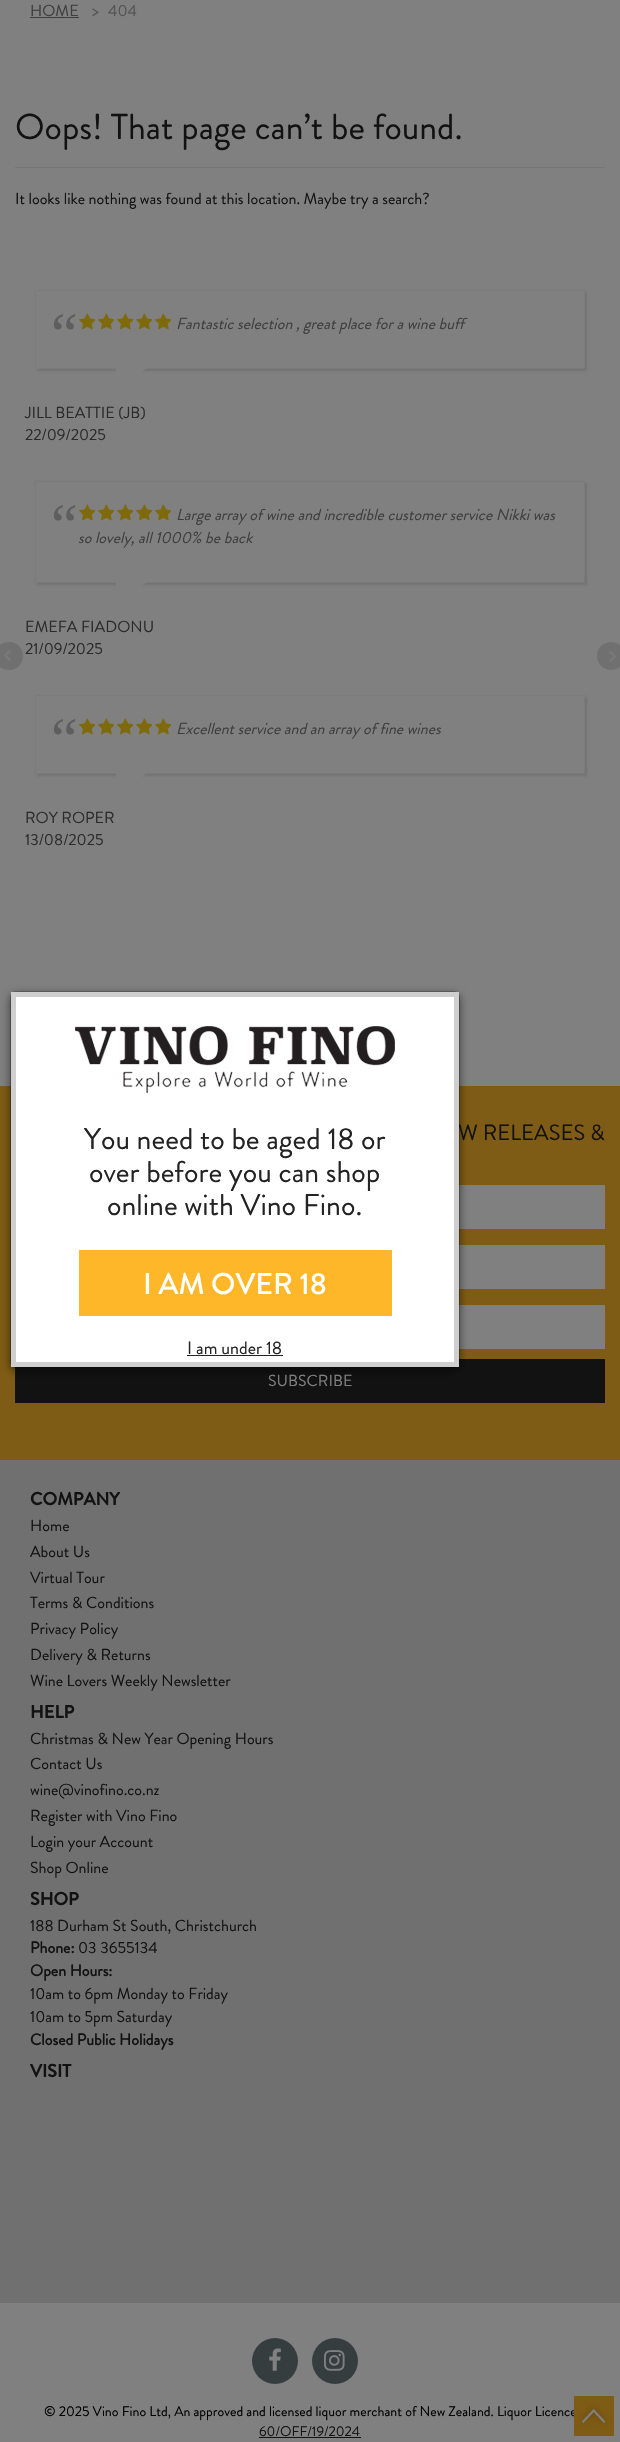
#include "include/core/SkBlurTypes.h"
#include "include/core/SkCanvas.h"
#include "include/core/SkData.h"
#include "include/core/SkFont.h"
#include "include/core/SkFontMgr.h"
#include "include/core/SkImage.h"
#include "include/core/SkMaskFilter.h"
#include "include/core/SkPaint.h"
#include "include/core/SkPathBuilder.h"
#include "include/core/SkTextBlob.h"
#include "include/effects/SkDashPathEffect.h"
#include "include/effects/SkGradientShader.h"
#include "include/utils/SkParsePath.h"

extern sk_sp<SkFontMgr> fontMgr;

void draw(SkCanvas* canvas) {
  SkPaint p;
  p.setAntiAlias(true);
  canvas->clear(SkColorSetRGB(128, 128, 128));
  p.setColor(SkColorSetRGB(62, 62, 62));
  canvas->drawRect(SkRect::MakeLTRB(30, 17, 79, 18), p);
  p.setColor(SkColorSetRGB(119, 119, 119));
  canvas->drawRect(SkRect::MakeLTRB(15, 167, 605, 168), p);
  p.setColor(SkColorSetRGB(112, 112, 112));
  canvas->drawPath(SkPathBuilder().moveTo(9, 670).cubicTo(-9.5f, 670, -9.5f, 642, 9, 642).cubicTo(27.5f, 642, 27.5f, 670, 9, 670).close().detach(), p);
  canvas->drawImageRect(SkImages::DeferredFromEncodedData(SkData::MakeFromFileName("images/1.png")), SkRect::MakeLTRB(4, 650, 11, 661), SkSamplingOptions());
  canvas->save();
  canvas->clipPath(SkPathBuilder(SkPathFillType::kEvenOdd).moveTo(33, 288).lineTo(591, 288).lineTo(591, 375).lineTo(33, 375).close().moveTo(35, 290).lineTo(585, 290).lineTo(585, 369).lineTo(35, 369).close().detach(), true);
  p.setColor(SkColorSetARGB(26, 0, 0, 0));
  p.setMaskFilter(SkMaskFilter::MakeBlur(kNormal_SkBlurStyle, 1));
  canvas->drawRect(SkRect::MakeLTRB(37, 292, 587, 371), p);
  p.setMaskFilter(nullptr);
  canvas->restore();
  p.setStyle(SkPaint::kStroke_Style);
  p.setStrokeWidth(1);
  p.setColor(SkColorSetRGB(123, 123, 123));
  canvas->drawRect(SkRect::MakeLTRB(35.5f, 290.5f, 584.5f, 368.5f), p);
  canvas->drawImageRect(SkImages::DeferredFromEncodedData(SkData::MakeFromFileName("images/2.png")), SkRect::MakeLTRB(79, 313, 95, 330), SkSamplingOptions());
  canvas->drawImageRect(SkImages::DeferredFromEncodedData(SkData::MakeFromFileName("images/2.png")), SkRect::MakeLTRB(98, 313, 114, 330), SkSamplingOptions());
  canvas->drawImageRect(SkImages::DeferredFromEncodedData(SkData::MakeFromFileName("images/2.png")), SkRect::MakeLTRB(117, 313, 133, 330), SkSamplingOptions());
  canvas->drawImageRect(SkImages::DeferredFromEncodedData(SkData::MakeFromFileName("images/2.png")), SkRect::MakeLTRB(136, 313, 152, 330), SkSamplingOptions());
  canvas->drawImageRect(SkImages::DeferredFromEncodedData(SkData::MakeFromFileName("images/2.png")), SkRect::MakeLTRB(155, 313, 171, 330), SkSamplingOptions());
  p.setStyle(SkPaint::kFill_Style);
  p.setColor(SkColorSetRGB(128, 128, 128));
  canvas->drawPath(SkPathBuilder().moveTo(116, 368).lineTo(146, 368).lineTo(116, 398).close().detach(), p);
  canvas->save();
  canvas->clipPath(SkPathBuilder(SkPathFillType::kEvenOdd).moveTo(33, 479).lineTo(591, 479).lineTo(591, 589).lineTo(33, 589).close().moveTo(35, 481).lineTo(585, 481).lineTo(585, 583).lineTo(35, 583).close().detach(), true);
  p.setColor(SkColorSetARGB(26, 0, 0, 0));
  p.setMaskFilter(SkMaskFilter::MakeBlur(kNormal_SkBlurStyle, 1));
  canvas->drawRect(SkRect::MakeLTRB(37, 483, 587, 585), p);
  p.setMaskFilter(nullptr);
  canvas->restore();
  p.setStyle(SkPaint::kStroke_Style);
  p.setColor(SkColorSetRGB(123, 123, 123));
  canvas->drawRect(SkRect::MakeLTRB(35.5f, 481.5f, 584.5f, 582.5f), p);
  canvas->drawImageRect(SkImages::DeferredFromEncodedData(SkData::MakeFromFileName("images/2.png")), SkRect::MakeLTRB(79, 504, 95, 521), SkSamplingOptions());
  canvas->drawImageRect(SkImages::DeferredFromEncodedData(SkData::MakeFromFileName("images/2.png")), SkRect::MakeLTRB(98, 504, 114, 521), SkSamplingOptions());
  canvas->drawImageRect(SkImages::DeferredFromEncodedData(SkData::MakeFromFileName("images/2.png")), SkRect::MakeLTRB(117, 504, 133, 521), SkSamplingOptions());
  canvas->drawImageRect(SkImages::DeferredFromEncodedData(SkData::MakeFromFileName("images/2.png")), SkRect::MakeLTRB(136, 504, 152, 521), SkSamplingOptions());
  canvas->drawImageRect(SkImages::DeferredFromEncodedData(SkData::MakeFromFileName("images/2.png")), SkRect::MakeLTRB(155, 504, 171, 521), SkSamplingOptions());
  p.setStyle(SkPaint::kFill_Style);
  p.setColor(SkColorSetRGB(128, 128, 128));
  canvas->drawPath(SkPathBuilder().moveTo(116, 582).lineTo(146, 582).lineTo(116, 612).close().detach(), p);
  canvas->save();
  canvas->clipPath(SkPathBuilder(SkPathFillType::kEvenOdd).moveTo(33, 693).lineTo(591, 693).lineTo(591, 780).lineTo(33, 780).close().moveTo(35, 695).lineTo(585, 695).lineTo(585, 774).lineTo(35, 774).close().detach(), true);
  p.setColor(SkColorSetARGB(26, 0, 0, 0));
  p.setMaskFilter(SkMaskFilter::MakeBlur(kNormal_SkBlurStyle, 1));
  canvas->drawRect(SkRect::MakeLTRB(37, 697, 587, 776), p);
  p.setMaskFilter(nullptr);
  canvas->restore();
  p.setStyle(SkPaint::kStroke_Style);
  p.setColor(SkColorSetRGB(123, 123, 123));
  canvas->drawRect(SkRect::MakeLTRB(35.5f, 695.5f, 584.5f, 773.5f), p);
  canvas->drawImageRect(SkImages::DeferredFromEncodedData(SkData::MakeFromFileName("images/2.png")), SkRect::MakeLTRB(79, 718, 95, 735), SkSamplingOptions());
  canvas->drawImageRect(SkImages::DeferredFromEncodedData(SkData::MakeFromFileName("images/2.png")), SkRect::MakeLTRB(98, 718, 114, 735), SkSamplingOptions());
  canvas->drawImageRect(SkImages::DeferredFromEncodedData(SkData::MakeFromFileName("images/2.png")), SkRect::MakeLTRB(117, 718, 133, 735), SkSamplingOptions());
  canvas->drawImageRect(SkImages::DeferredFromEncodedData(SkData::MakeFromFileName("images/2.png")), SkRect::MakeLTRB(136, 718, 152, 735), SkSamplingOptions());
  canvas->drawImageRect(SkImages::DeferredFromEncodedData(SkData::MakeFromFileName("images/2.png")), SkRect::MakeLTRB(155, 718, 171, 735), SkSamplingOptions());
  p.setStyle(SkPaint::kFill_Style);
  p.setColor(SkColorSetRGB(128, 128, 128));
  canvas->drawPath(SkPathBuilder().moveTo(116, 773).lineTo(146, 773).lineTo(116, 803).close().detach(), p);
  p.setColor(SkColorSetRGB(112, 112, 112));
  canvas->drawCircle(611, 656, 14, p);
  canvas->drawImageRect(SkImages::DeferredFromEncodedData(SkData::MakeFromFileName("images/3.png")), SkRect::MakeLTRB(609, 651, 616, 662), SkSamplingOptions());
  p.setColor(SkColorSetRGB(127, 92, 21));
  canvas->drawRect(SkRect::MakeLTRB(0, 1086, 620, 1460), p);
  p.setColor(SkColorSetRGB(128, 128, 128));
  canvas->drawRect(SkRect::MakeLTRB(459, 1185, 605, 1229), p);
  canvas->drawRect(SkRect::MakeLTRB(459, 1245, 605, 1289), p);
  canvas->drawRect(SkRect::MakeLTRB(459, 1305, 605, 1349), p);
  p.setColor(SkColorSetRGB(18, 18, 18));
  canvas->drawRect(SkRect::MakeLTRB(15, 1359, 605, 1403), p);
  p.setColor(SkColorSetARGB(128, 0, 0, 0));
  p.setMaskFilter(SkMaskFilter::MakeBlur(kNormal_SkBlurStyle, 4.5f));
  canvas->drawRoundRect(SkRect::MakeLTRB(10, 994, 460, 1371), 6, 6, p);
  p.setMaskFilter(nullptr);
  p.setColor(SK_ColorWHITE);
  canvas->drawRect(SkRect::MakeLTRB(16, 997, 454, 1362), p);
  p.setColor(SkColorSetRGB(112, 112, 112));
  canvas->drawRect(SkRect::MakeLTRB(0, 1460, 620, 2303), p);
  p.setColor(SkColorSetRGB(54, 61, 63));
  canvas->drawCircle(275, 2361, 23, p);
  canvas->drawImageRect(SkImages::DeferredFromEncodedData(SkData::MakeFromFileName("images/5.png")), SkRect::MakeLTRB(269, 2348, 281, 2371), SkSamplingOptions());
  canvas->drawCircle(335, 2361, 23, p);
  canvas->drawImageRect(SkImages::DeferredFromEncodedData(SkData::MakeFromFileName("images/6.png")), SkRect::MakeLTRB(324, 2350, 345, 2371), SkSamplingOptions());
  p.setColor(SkColorSetRGB(18, 18, 18));
  canvas->drawRect(SkRect::MakeLTRB(259, 2437, 361, 2438), p);
  SkFont font1(fontMgr->matchFamilyStyle("Brandon Grotesque", SkFontStyle::Normal()), 16);
  font1.setSubpixel(true);
  p.setColor(SkColorSetRGB(62, 62, 62));
  canvas->drawString("HOME", 30, 16, font1, p);
  p.setColor(SkColorSetRGB(82, 82, 82));
  canvas->drawString(">", 92, 16, font1, p);
  canvas->drawString("404", 108, 16, font1, p);
  SkFont font2(fontMgr->matchFamilyStyle("Brandon Grotesque", SkFontStyle::Normal()), 36);
  font2.setSubpixel(true);
  p.setColor(SkColorSetRGB(18, 18, 18));
  canvas->drawString("Oops! That page can’t be found.", 15, 139, font2, p);
  canvas->drawString("It looks like nothing was found at this location. Maybe try a search?", 15, 204, font1, p);
  SkFont font3(fontMgr->matchFamilyStyle("Liberation Serif", SkFontStyle::Normal()), 60);
  font3.setSubpixel(true);
  p.setColor(SkColorSetRGB(94, 94, 94));
  canvas->drawString("“", 51, 354, font3, p);
  SkFont font4(fontMgr->matchFamilyStyle("Brandon Grotesque", SkFontStyle::Italic()), 16);
  font4.setSubpixel(true);
  p.setColor(SkColorSetRGB(62, 62, 62));
  canvas->drawString("Fantastic selection , great place for a wine buff", 176, 329, font4, p);
  p.setColor(SkColorSetRGB(43, 43, 43));
  canvas->drawString("JILL BEATTIE (JB)", 25, 418, font1, p);
  canvas->drawString("22/09/2025", 25, 440, font1, p);
  p.setColor(SkColorSetRGB(94, 94, 94));
  canvas->drawString("“", 51, 545, font3, p);
  p.setColor(SkColorSetRGB(62, 62, 62));
  canvas->drawString("Large array of wine and incredible customer service Nikki was", 176, 520, font4, p);
  canvas->drawString("so lovely, all 1000% be back", 78, 543, font4, p);
  p.setColor(SkColorSetRGB(43, 43, 43));
  canvas->drawString("EMEFA FIADONU", 25, 632, font1, p);
  canvas->drawString("21/09/2025", 25, 654, font1, p);
  p.setColor(SkColorSetRGB(94, 94, 94));
  canvas->drawString("“", 51, 759, font3, p);
  p.setColor(SkColorSetRGB(62, 62, 62));
  canvas->drawString("Excellent service and an array of fine wines", 176, 734, font4, p);
  p.setColor(SkColorSetRGB(43, 43, 43));
  canvas->drawString("ROY ROPER", 25, 823, font1, p);
  canvas->drawString("13/08/2025", 25, 845, font1, p);
  SkFont font5(fontMgr->matchFamilyStyle("Brandon Grotesque", SkFontStyle::Normal()), 22);
  font5.setSubpixel(true);
  p.setColor(SkColorSetRGB(18, 18, 18));
  canvas->drawString("W RELEASES &", 458, 1140, font5, p);
  p.setStyle(SkPaint::kStroke_Style);
  p.setColor(SkColorSetARGB(51, 0, 0, 0));
  canvas->drawRoundRect(SkRect::MakeLTRB(10.5f, 991.5f, 459.5f, 1367.5f), 5.5f, 5.5f, p);
  p.setStrokeWidth(5);
  p.setColor(SkColorSetRGB(207, 207, 207));
  canvas->drawRect(SkRect::MakeLTRB(13.5f, 994.5f, 456.5f, 1364.5f), p);
  SkFont font6(fontMgr->matchFamilyStyle("Brandon Grotesque", SkFontStyle::Normal()), 18);
  font6.setSubpixel(true);
  p.setStyle(SkPaint::kFill_Style);
  p.setColor(SkColorSetRGB(35, 35, 35));
  canvas->drawString("I am under 18", 187, 1354, font6, p);
  canvas->drawRect(SkRect::MakeLTRB(187, 1355, 283, 1356), p);
  p.setColor(SkColorSetRGB(253, 183, 41));
  canvas->drawRect(SkRect::MakeLTRB(79, 1250, 392, 1316), p);
  SkFont font7(fontMgr->matchFamilyStyle("Brandon Grotesque", SkFontStyle(500, SkFontStyle::kNormal_Width, SkFontStyle::kUpright_Slant)), 30);
  font7.setSubpixel(true);
  p.setColor(SK_ColorWHITE);
  canvas->drawString("I AM OVER 18", 143, 1294, font7, p);
  SkFont font8(fontMgr->matchFamilyStyle("Brandon Grotesque", SkFontStyle::Normal()), 30);
  font8.setSubpixel(true);
  p.setColor(SkColorSetRGB(35, 35, 35));
  canvas->drawString("online with Vino Fino.", 107, 1215, font8, p);
  canvas->drawString("over before you can shop", 89, 1182, font8, p);
  canvas->drawString("You need to be aged 18 or", 84, 1149, font8, p);
  canvas->drawImageRect(SkImages::DeferredFromEncodedData(SkData::MakeFromFileName("images/4.png")), SkRect::MakeLTRB(75, 1026, 395, 1093), SkSamplingOptions());
  p.setColor(SkColorSetRGB(128, 128, 128));
  canvas->drawString("SUBSCRIBE", 268, 1386, font1, p);
  SkFont font9(fontMgr->matchFamilyStyle("Brandon Grotesque", SkFontStyle::Bold()), 18);
  font9.setSubpixel(true);
  p.setColor(SkColorSetRGB(18, 18, 18));
  canvas->drawString("COMPANY", 30, 1505, font9, p);
  canvas->drawString("Home", 30, 1531, font1, p);
  canvas->drawString("About Us", 30, 1557, font1, p);
  canvas->drawString("Virtual Tour", 30, 1583, font1, p);
  canvas->drawString("Terms & Conditions", 30, 1608, font1, p);
  canvas->drawString("Privacy Policy", 30, 1634, font1, p);
  canvas->drawString("Delivery & Returns", 30, 1660, font1, p);
  canvas->drawString("Wine Lovers Weekly Newsletter", 30, 1686, font1, p);
  canvas->drawString("HELP", 30, 1718, font9, p);
  canvas->drawString("Christmas & New Year Opening Hours", 30, 1744, font1, p);
  canvas->drawString("Contact Us", 30, 1769, font1, p);
  canvas->drawString("wine@vinofino.co.nz", 30, 1795, font1, p);
  canvas->drawString("Register with Vino Fino", 30, 1821, font1, p);
  canvas->drawString("Login your Account", 30, 1847, font1, p);
  canvas->drawString("Shop Online", 30, 1873, font1, p);
  canvas->drawString("SHOP", 30, 1905, font9, p);
  canvas->drawString("188 Durham St South, Christchurch", 30, 1931, font1, p);
  SkFont font10(fontMgr->matchFamilyStyle("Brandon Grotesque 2", SkFontStyle::Bold()), 16);
  font10.setSubpixel(true);
  canvas->drawString("Phone:", 30, 1953, font10, p);
  canvas->drawString("03 3655134", 78, 1953, font1, p);
  canvas->drawString("Open Hours:", 30, 1976, font10, p);
  canvas->drawString("10am to 6pm Monday to Friday", 30, 1999, font1, p);
  canvas->drawString("10am to 5pm Saturday", 30, 2022, font1, p);
  canvas->drawString("Closed Public Holidays", 30, 2045, font10, p);
  canvas->drawString("VISIT", 30, 2077, font9, p);
  SkFont font11(fontMgr->matchFamilyStyle("Brandon Grotesque", SkFontStyle::Normal()), 14);
  font11.setSubpixel(true);
  p.setColor(SK_ColorBLACK);
  canvas->drawString("© 2025 Vino Fino Ltd, An approved and licensed liquor merchant of New Zealand. Liquor Licence", 44, 2416, font11, p);
  p.setColor(SkColorSetRGB(18, 18, 18));
  canvas->drawString("60/OFF/19/2024", 259, 2436, font11, p);
  canvas->drawImageRect(SkImages::DeferredFromEncodedData(SkData::MakeFromFileName("images/7.png")), SkRect::MakeLTRB(574, 2396, 614, 2436), SkSamplingOptions());
}
